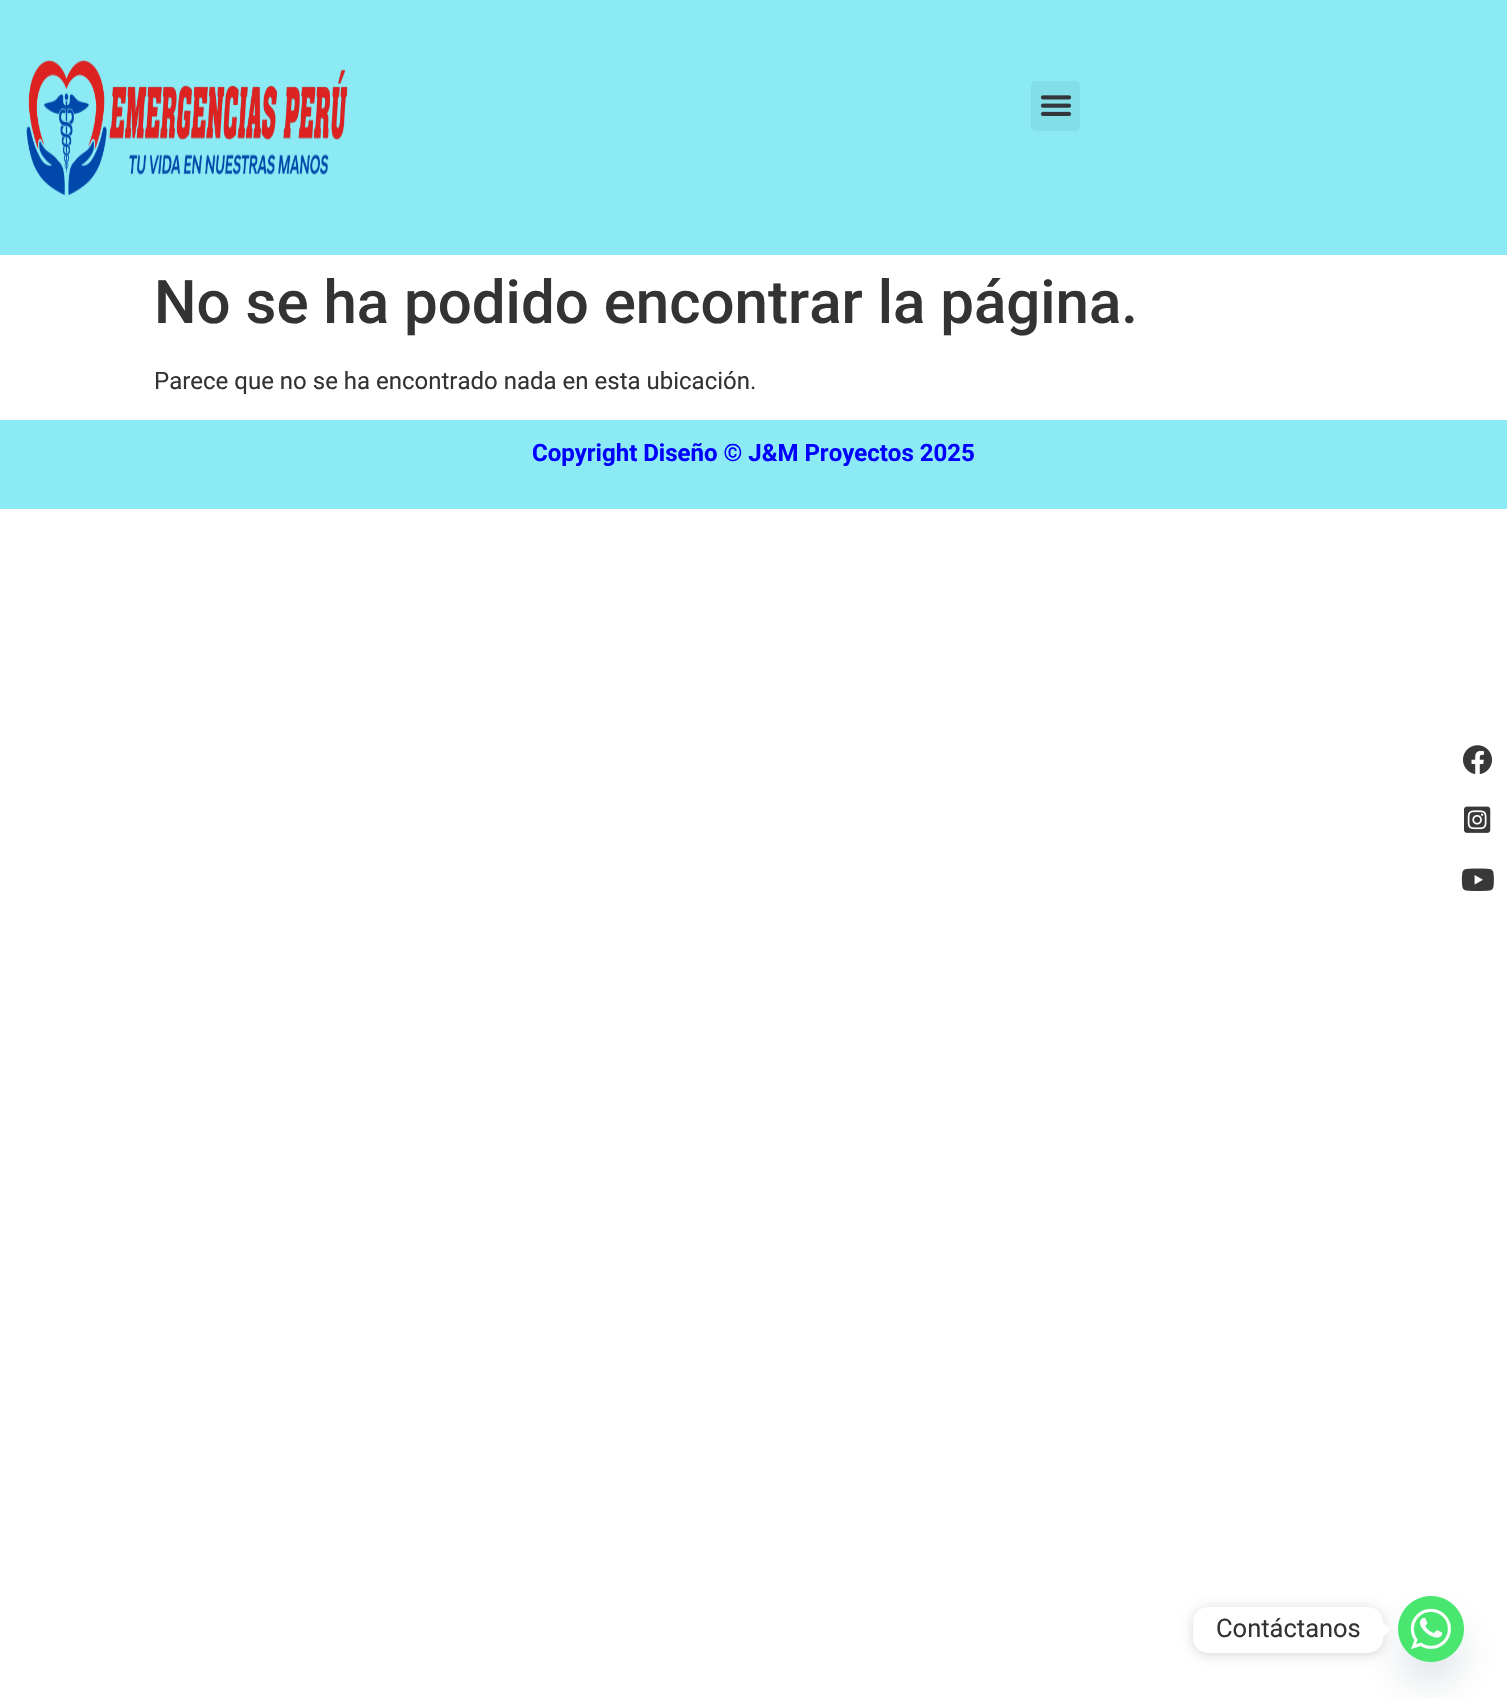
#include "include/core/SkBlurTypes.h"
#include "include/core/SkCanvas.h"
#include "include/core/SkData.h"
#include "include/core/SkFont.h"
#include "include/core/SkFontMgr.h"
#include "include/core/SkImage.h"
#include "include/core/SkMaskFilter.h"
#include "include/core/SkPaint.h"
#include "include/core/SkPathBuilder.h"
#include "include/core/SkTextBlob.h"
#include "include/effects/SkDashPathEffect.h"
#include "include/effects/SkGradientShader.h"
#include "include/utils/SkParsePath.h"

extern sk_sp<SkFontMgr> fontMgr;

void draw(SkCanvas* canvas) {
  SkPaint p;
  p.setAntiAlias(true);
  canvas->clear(SK_ColorWHITE);
  p.setColor(SkColorSetRGB(139, 234, 243));
  canvas->drawRect(SkRect::MakeLTRB(0, 0, 1507, 255), p);
  canvas->drawImageRect(SkImages::DeferredFromEncodedData(SkData::MakeFromFileName("images/1.png")), SkRect::MakeLTRB(26, 60, 348, 196), SkSamplingOptions());
  p.setColor(SkColorSetRGB(132, 222, 231));
  canvas->drawRoundRect(SkRect::MakeLTRB(1031, 81, 1080, 131), 5, 5, p);
  canvas->drawImageRect(SkImages::DeferredFromEncodedData(SkData::MakeFromFileName("images/2.png")), SkRect::MakeLTRB(1040, 95, 1072, 116), SkSamplingOptions());
  p.setColor(SkColorSetRGB(139, 234, 243));
  canvas->drawRect(SkRect::MakeLTRB(0, 420, 1507, 509), p);
  canvas->drawImageRect(SkImages::DeferredFromEncodedData(SkData::MakeFromFileName("images/3.png")), SkRect::MakeLTRB(1463, 745, 1492, 774), SkSamplingOptions());
  canvas->drawImageRect(SkImages::DeferredFromEncodedData(SkData::MakeFromFileName("images/4.png")), SkRect::MakeLTRB(1464, 806, 1491, 833), SkSamplingOptions());
  canvas->drawImageRect(SkImages::DeferredFromEncodedData(SkData::MakeFromFileName("images/5.png")), SkRect::MakeLTRB(1461, 868, 1494, 891), SkSamplingOptions());
  p.setColor(SkColorSetARGB(41, 73, 104, 126));
  p.setMaskFilter(SkMaskFilter::MakeBlur(kNormal_SkBlurStyle, 18));
  canvas->drawRoundRect(SkRect::MakeLTRB(1398, 1620, 1464, 1686), 33, 33, p);
  p.setMaskFilter(nullptr);
  canvas->drawImageRect(SkImages::DeferredFromEncodedData(SkData::MakeFromFileName("images/6.png")), SkRect::MakeLTRB(1398, 1596, 1464, 1662), SkSamplingOptions());
  p.setColor(SkColorSetARGB(38, 0, 0, 0));
  p.setMaskFilter(SkMaskFilter::MakeBlur(kNormal_SkBlurStyle, 6));
  canvas->drawRoundRect(SkRect::MakeLTRB(1193, 1608, 1383, 1655), 15, 15, p);
  p.setMaskFilter(nullptr);
  p.setColor(SK_ColorWHITE);
  canvas->drawRoundRect(SkRect::MakeLTRB(1193, 1607, 1383, 1653), 15, 15, p);
  canvas->drawPath(SkPathBuilder().moveTo(1383, 1637).lineTo(1383, 1622).lineTo(1390.5f, 1630).close().detach(), p);
  SkFont font1(fontMgr->matchFamilyStyle("Roboto", SkFontStyle(500, SkFontStyle::kNormal_Width, SkFontStyle::kUpright_Slant)), 60);
  font1.setSubpixel(true);
  p.setColor(SkColorSetRGB(51, 51, 51));
  canvas->drawString("No se ha podido encontrar la página.", 154, 323, font1, p);
  SkFont font2(fontMgr->matchFamilyStyle("Roboto", SkFontStyle::Normal()), 24);
  font2.setSubpixel(true);
  canvas->drawString("Parece que no se ha encontrado nada en esta ubicación.", 154, 389, font2, p);
  SkFont font3(fontMgr->matchFamilyStyle("Roboto", SkFontStyle::Bold()), 24);
  font3.setSubpixel(true);
  p.setColor(SkColorSetRGB(0, 0, 255));
  canvas->drawString("Copyright Diseño © J&M Proyectos 2025", 532, 461, font3, p);
  SkFont font4(fontMgr->matchFamilyStyle("Roboto", SkFontStyle::Normal()), 25.5f);
  font4.setSubpixel(true);
  p.setColor(SkColorSetRGB(51, 51, 51));
  canvas->drawString("Contáctanos", 1216, 1637, font4, p);
}
